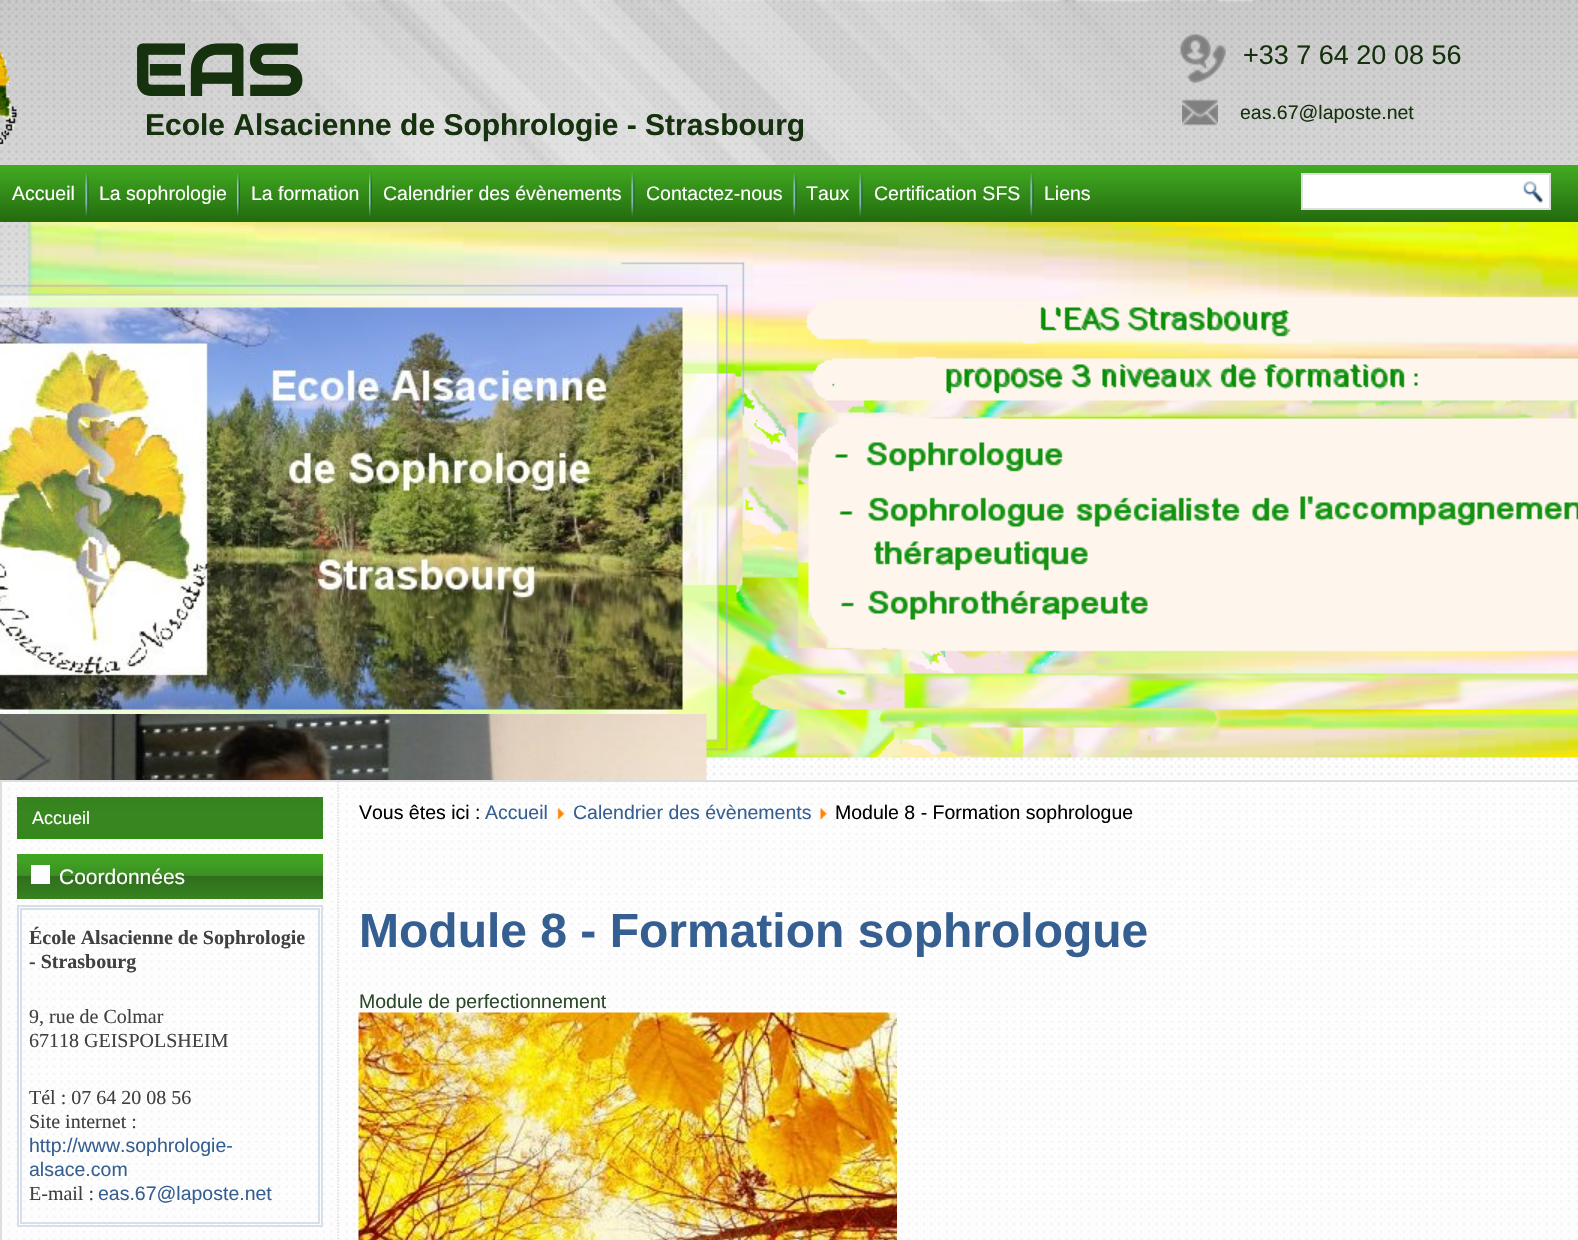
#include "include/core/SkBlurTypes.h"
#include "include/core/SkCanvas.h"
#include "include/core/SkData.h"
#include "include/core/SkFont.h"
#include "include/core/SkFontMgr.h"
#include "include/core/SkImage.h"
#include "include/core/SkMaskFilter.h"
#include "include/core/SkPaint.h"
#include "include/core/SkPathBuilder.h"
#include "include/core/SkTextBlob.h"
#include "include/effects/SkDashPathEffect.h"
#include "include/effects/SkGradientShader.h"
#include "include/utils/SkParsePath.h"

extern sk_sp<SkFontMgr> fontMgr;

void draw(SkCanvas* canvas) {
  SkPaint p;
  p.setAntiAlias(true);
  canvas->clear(SK_ColorWHITE);
  canvas->drawImageRect(SkImages::DeferredFromEncodedData(SkData::MakeFromFileName("images/1.png")), SkRect::MakeLTRB(0, 0, 1578, 1240), SkSamplingOptions());
  canvas->drawImageRect(SkImages::DeferredFromEncodedData(SkData::MakeFromFileName("images/2.png")), SkRect::MakeLTRB(0, 51, 17, 146), SkSamplingOptions());
  canvas->drawImageRect(SkImages::DeferredFromEncodedData(SkData::MakeFromFileName("images/3.png")), SkRect::MakeLTRB(1180, 34, 1226, 83), SkSamplingOptions());
  canvas->drawImageRect(SkImages::DeferredFromEncodedData(SkData::MakeFromFileName("images/4.png")), SkRect::MakeLTRB(1182, 99, 1218, 126), SkSamplingOptions());
  canvas->drawImageRect(SkImages::DeferredFromEncodedData(SkData::MakeFromFileName("images/5.png")), SkRect::MakeLTRB(28, 222, 1578, 758), SkSamplingOptions());
  canvas->drawImageRect(SkImages::DeferredFromEncodedData(SkData::MakeFromFileName("images/6.png")), SkRect::MakeLTRB(0, 262, 745, 751), SkSamplingOptions());
  canvas->drawImageRect(SkImages::DeferredFromEncodedData(SkData::MakeFromFileName("images/7.png")), SkRect::MakeLTRB(0, 307, 683, 710), SkSamplingOptions());
  canvas->drawImageRect(SkImages::DeferredFromEncodedData(SkData::MakeFromFileName("images/8.png")), SkRect::MakeLTRB(0, 714, 707, 780), SkSamplingOptions());
  {
    const SkColor colors[] = {SkColorSetRGB(66, 172, 34), SkColorSetRGB(35, 106, 14)};
    const float stops[] = {0, 1};
    const SkPoint ends[] = {{795, 165}, {795, 222}};
    p.setShader(SkGradientShader::MakeLinear(ends, colors, stops, 2, SkTileMode::kClamp));
    p.setAlpha(255);
  }
  canvas->drawRect(SkRect::MakeLTRB(0, 165, 1578, 222), p);
  canvas->drawImageRect(SkImages::DeferredFromEncodedData(SkData::MakeFromFileName("images/9.png")), SkRect::MakeLTRB(85, 172, 89, 216), SkSamplingOptions());
  canvas->drawImageRect(SkImages::DeferredFromEncodedData(SkData::MakeFromFileName("images/10.png")), SkRect::MakeLTRB(237, 172, 240, 216), SkSamplingOptions());
  canvas->drawImageRect(SkImages::DeferredFromEncodedData(SkData::MakeFromFileName("images/11.png")), SkRect::MakeLTRB(369, 172, 372, 216), SkSamplingOptions());
  canvas->drawImageRect(SkImages::DeferredFromEncodedData(SkData::MakeFromFileName("images/9.png")), SkRect::MakeLTRB(631, 172, 635, 216), SkSamplingOptions());
  canvas->drawImageRect(SkImages::DeferredFromEncodedData(SkData::MakeFromFileName("images/9.png")), SkRect::MakeLTRB(793, 172, 797, 216), SkSamplingOptions());
  canvas->drawImageRect(SkImages::DeferredFromEncodedData(SkData::MakeFromFileName("images/9.png")), SkRect::MakeLTRB(859, 172, 863, 216), SkSamplingOptions());
  canvas->drawImageRect(SkImages::DeferredFromEncodedData(SkData::MakeFromFileName("images/9.png")), SkRect::MakeLTRB(1030, 172, 1034, 216), SkSamplingOptions());
  p.setShader(nullptr);
  p.setColor(SK_ColorWHITE);
  canvas->drawRect(SkRect::MakeLTRB(1302, 174, 1550, 209), p);
  p.setStyle(SkPaint::kStroke_Style);
  p.setStrokeWidth(2);
  p.setColor(SkColorSetRGB(222, 222, 222));
  canvas->drawRect(SkRect::MakeLTRB(1302, 174, 1550, 209), p);
  canvas->drawImageRect(SkImages::DeferredFromEncodedData(SkData::MakeFromFileName("images/12.png")), SkRect::MakeLTRB(1522, 181, 1544, 203), SkSamplingOptions());
  p.setStyle(SkPaint::kFill_Style);
  p.setColor(SkColorSetARGB(102, 255, 255, 255));
  canvas->drawRect(SkRect::MakeLTRB(2, 782, 1578, 1240), p);
  p.setColor(SkColorSetRGB(222, 222, 222));
  canvas->drawRect(SkRect::MakeLTRB(0, 780, 1578, 782), p);
  canvas->drawRect(SkRect::MakeLTRB(0, 780, 2, 1240), p);
  p.setStyle(SkPaint::kStroke_Style);
  p.setStrokeWidth(1.5f);
  p.setColor(SkColorSetRGB(215, 223, 234));
  p.setPathEffect(SkDashPathEffect::Make({{1.5f, 1.5f}}, 0));
  canvas->drawPath(SkPathBuilder().moveTo(338, 781.5f).lineTo(338, 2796).detach(), p);
  p.setPathEffect(nullptr);
  p.setStyle(SkPaint::kFill_Style);
  {
    const SkColor colors[] = {SkColorSetRGB(54, 131, 31), SkColorSetRGB(55, 134, 31), SkColorSetRGB(55, 134, 31), SkColorSetRGB(45, 140, 17)};
    const float stops[] = {0, 0.4f, 0.85f, 1};
    const SkPoint ends[] = {{170, 797}, {170, 839}};
    p.setShader(SkGradientShader::MakeLinear(ends, colors, stops, 4, SkTileMode::kClamp));
    p.setAlpha(255);
  }
  canvas->drawRect(SkRect::MakeLTRB(17, 797, 323, 839), p);
  {
    const SkColor colors[] = {SkColorSetRGB(62, 165, 31), SkColorSetRGB(65, 162, 36), SkColorSetRGB(59, 142, 34), SkColorSetRGB(48, 110, 30), SkColorSetRGB(54, 131, 31)};
    const float stops[] = {0, 0.15f, 0.5f, 0.5f, 1};
    const SkPoint ends[] = {{170, 854}, {170, 899}};
    p.setShader(SkGradientShader::MakeLinear(ends, colors, stops, 5, SkTileMode::kClamp));
    p.setAlpha(255);
  }
  canvas->drawRect(SkRect::MakeLTRB(17, 854, 323, 899), p);
  p.setShader(nullptr);
  p.setColor(SkColorSetRGB(251, 253, 254));
  canvas->drawRect(SkRect::MakeLTRB(31, 865, 50, 884), p);
  p.setStyle(SkPaint::kStroke_Style);
  p.setStrokeWidth(2);
  p.setColor(SkColorSetRGB(215, 223, 234));
  canvas->drawRect(SkRect::MakeLTRB(18, 906, 322, 1226), p);
  canvas->drawRect(SkRect::MakeLTRB(21, 909, 319, 1223), p);
  canvas->drawImageRect(SkImages::DeferredFromEncodedData(SkData::MakeFromFileName("images/13.png")), SkRect::MakeLTRB(557, 808, 565, 819), SkSamplingOptions());
  canvas->drawImageRect(SkImages::DeferredFromEncodedData(SkData::MakeFromFileName("images/14.png")), SkRect::MakeLTRB(820, 808, 827, 819), SkSamplingOptions());
  SkFont font1(fontMgr->matchFamilyStyle("Audiowide", SkFontStyle::Bold()), 72);
  font1.setSubpixel(true);
  p.setStyle(SkPaint::kFill_Style);
  p.setColor(SkColorSetRGB(21, 49, 13));
  canvas->drawString("EAS", 132, 96, font1, p);
  SkFont font2(fontMgr->matchFamilyStyle("Liberation Sans", SkFontStyle::Normal()), 27);
  font2.setSubpixel(true);
  canvas->drawString("+33 7 64 20 08 56", 1243, 64, font2, p);
  SkFont font3(fontMgr->matchFamilyStyle("Liberation Sans", SkFontStyle::Normal()), 19.5f);
  font3.setSubpixel(true);
  canvas->drawString("eas.67@laposte.net", 1240, 119, font3, p);
  SkFont font4(fontMgr->matchFamilyStyle("Liberation Sans", SkFontStyle::Bold()), 30);
  font4.setSubpixel(true);
  canvas->drawString("Ecole Alsacienne de Sophrologie - Strasbourg", 145, 135, font4, p);
  p.setColor(SK_ColorWHITE);
  canvas->drawString("Accueil", 12, 200, font3, p);
  canvas->drawString("La sophrologie", 99, 200, font3, p);
  canvas->drawString("La formation", 251, 200, font3, p);
  canvas->drawString("Calendrier des évènements", 383, 200, font3, p);
  canvas->drawString("Contactez-nous", 646, 200, font3, p);
  canvas->drawString("Taux", 806, 200, font3, p);
  canvas->drawString("Certification SFS", 874, 200, font3, p);
  canvas->drawString("Liens", 1044, 200, font3, p);
  SkFont font5(fontMgr->matchFamilyStyle("Liberation Sans", SkFontStyle::Normal()), 18);
  font5.setSubpixel(true);
  canvas->drawString("Accueil", 32, 824, font5, p);
  SkFont font6(fontMgr->matchFamilyStyle("Liberation Sans", SkFontStyle::Normal()), 21);
  font6.setSubpixel(true);
  canvas->drawString("Coordonnées", 59, 884, font6, p);
  SkFont font7(fontMgr->matchFamilyStyle("Liberation Serif", SkFontStyle::Bold()), 20);
  font7.setSubpixel(true);
  p.setColor(SkColorSetRGB(64, 64, 64));
  canvas->drawString("École Alsacienne de Sophrologie", 29, 944, font7, p);
  canvas->drawString("- Strasbourg", 29, 968, font7, p);
  SkFont font8(fontMgr->matchFamilyStyle("Liberation Serif", SkFontStyle::Normal()), 20);
  font8.setSubpixel(true);
  canvas->drawString("9, rue de Colmar", 29, 1023, font8, p);
  canvas->drawString("67118 GEISPOLSHEIM", 29, 1047, font8, p);
  canvas->drawString("Tél : 07 64 20 08 56", 29, 1104, font8, p);
  canvas->drawString("Site internet :", 29, 1128, font8, p);
  p.setColor(SkColorSetRGB(54, 95, 145));
  canvas->drawString("http://www.sophrologie-", 29, 1152, font3, p);
  canvas->drawString("alsace.com", 29, 1176, font3, p);
  p.setColor(SkColorSetRGB(64, 64, 64));
  canvas->drawString("E-mail :", 29, 1200, font8, p);
  p.setColor(SkColorSetRGB(54, 95, 145));
  canvas->drawString("eas.67@laposte.net", 98, 1200, font3, p);
  p.setColor(SK_ColorBLACK);
  canvas->drawString("Vous êtes ici :", 359, 819, font3, p);
  p.setColor(SkColorSetRGB(54, 95, 145));
  canvas->drawString("Accueil", 485, 819, font3, p);
  canvas->drawString("Calendrier des évènements", 573, 819, font3, p);
  p.setColor(SK_ColorBLACK);
  canvas->drawString("Module 8 - Formation sophrologue", 835, 819, font3, p);
  SkFont font9(fontMgr->matchFamilyStyle("Liberation Sans", SkFontStyle::Bold()), 48);
  font9.setSubpixel(true);
  p.setColor(SkColorSetRGB(54, 95, 145));
  canvas->drawString("Module 8 - Formation sophrologue", 359, 947, font9, p);
  p.setColor(SkColorSetRGB(44, 74, 42));
  canvas->drawString("Module de perfectionnement", 359, 1008, font3, p);
  canvas->drawImageRect(SkImages::DeferredFromEncodedData(SkData::MakeFromFileName("images/15.png")), SkRect::MakeLTRB(358, 1012, 897, 1240), SkSamplingOptions());
}
